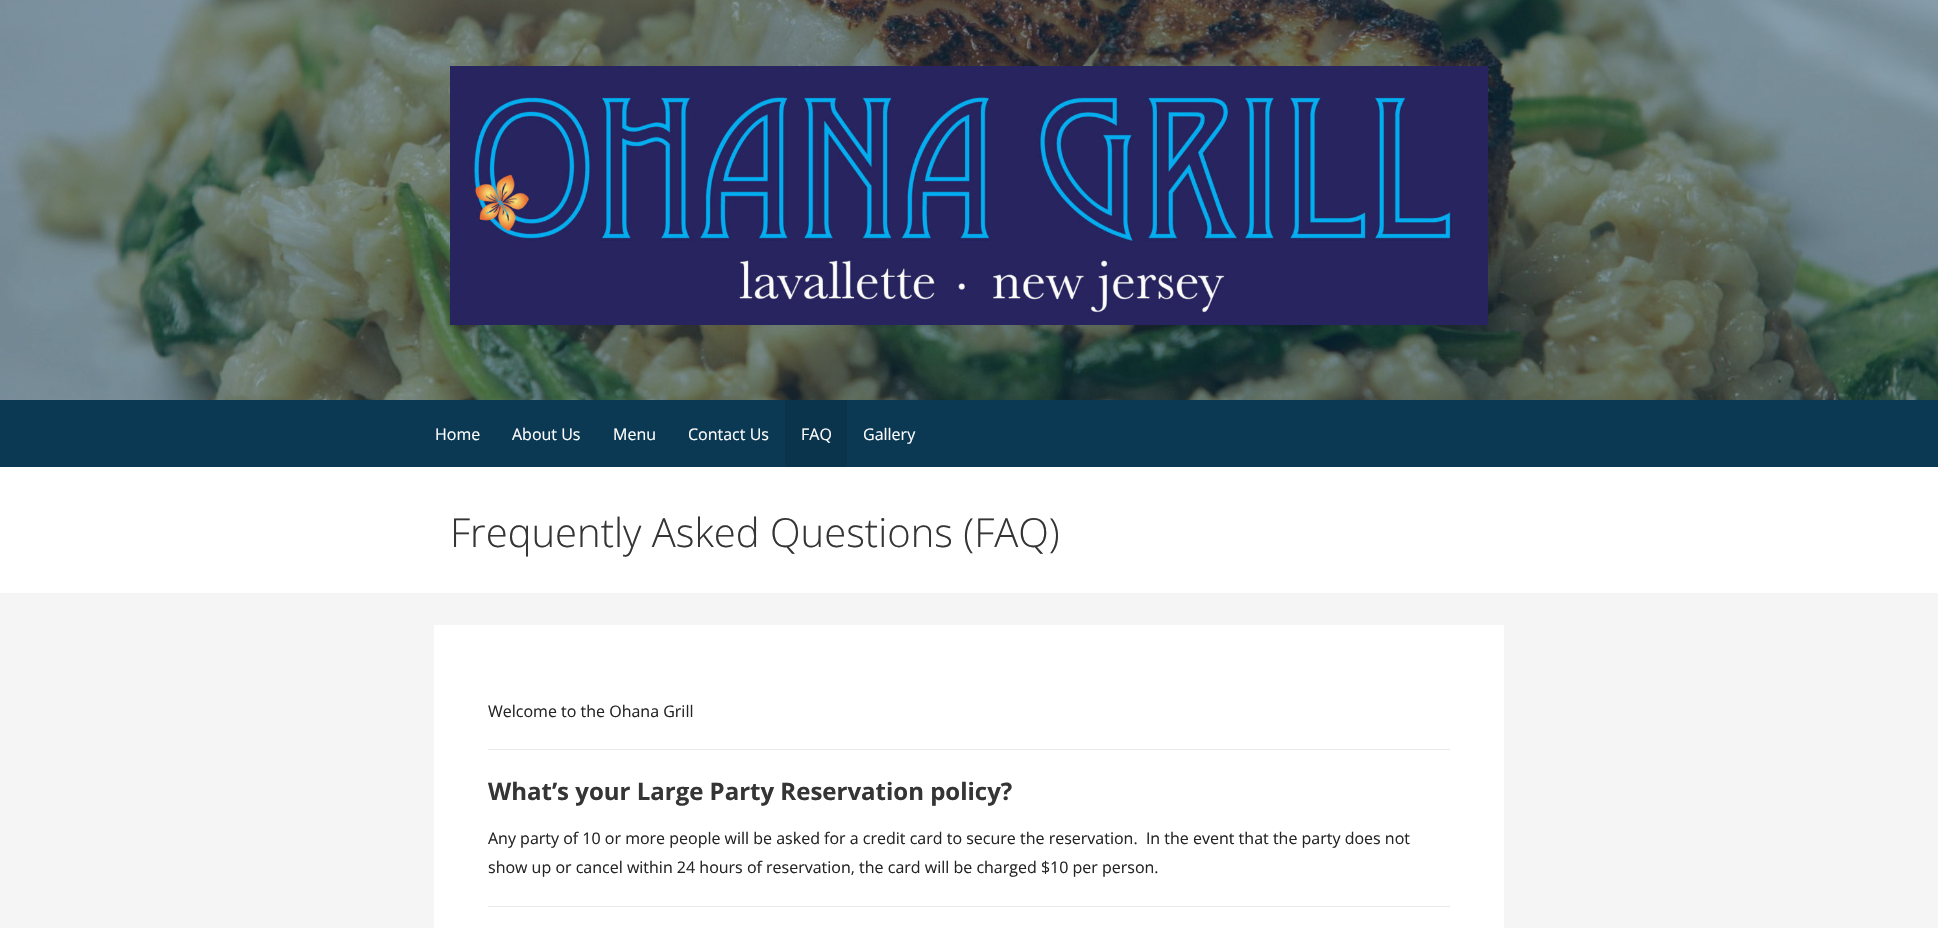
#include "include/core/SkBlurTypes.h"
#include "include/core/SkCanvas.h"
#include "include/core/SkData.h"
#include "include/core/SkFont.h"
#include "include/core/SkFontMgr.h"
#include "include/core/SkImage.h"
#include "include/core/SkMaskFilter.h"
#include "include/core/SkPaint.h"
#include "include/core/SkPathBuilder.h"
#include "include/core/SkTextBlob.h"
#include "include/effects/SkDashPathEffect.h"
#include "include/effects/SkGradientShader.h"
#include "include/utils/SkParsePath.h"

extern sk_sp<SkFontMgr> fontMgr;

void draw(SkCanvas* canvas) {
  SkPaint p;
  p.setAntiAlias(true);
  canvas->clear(SkColorSetRGB(245, 245, 245));
  canvas->drawImageRect(SkImages::DeferredFromEncodedData(SkData::MakeFromFileName("images/1.png")), SkRect::MakeLTRB(0, 0, 1938, 400), SkSamplingOptions());
  canvas->drawImageRect(SkImages::DeferredFromEncodedData(SkData::MakeFromFileName("images/2.png")), SkRect::MakeLTRB(450, 66, 1488, 325), SkSamplingOptions());
  p.setColor(SkColorSetRGB(11, 57, 84));
  canvas->drawRect(SkRect::MakeLTRB(0, 400, 1938, 467), p);
  p.setColor(SkColorSetRGB(10, 51, 76));
  canvas->drawRect(SkRect::MakeLTRB(785, 400, 847, 467), p);
  p.setColor(SK_ColorWHITE);
  canvas->drawRect(SkRect::MakeLTRB(0, 467, 1938, 593), p);
  canvas->drawRect(SkRect::MakeLTRB(434, 625, 1504, 928), p);
  p.setColor(SkColorSetRGB(233, 233, 233));
  canvas->drawRect(SkRect::MakeLTRB(488, 749, 1450, 750), p);
  canvas->drawRect(SkRect::MakeLTRB(488, 906, 1450, 907), p);
  SkFont font1(fontMgr->matchFamilyStyle("Open Sans", SkFontStyle::Normal()), 16);
  font1.setSubpixel(true);
  p.setColor(SK_ColorWHITE);
  canvas->drawString("Home", 435, 440, font1, p);
  canvas->drawString("About Us", 512, 440, font1, p);
  canvas->drawString("Menu", 613, 440, font1, p);
  canvas->drawString("Contact Us", 688, 440, font1, p);
  canvas->drawString("FAQ", 801, 440, font1, p);
  canvas->drawString("Gallery", 863, 440, font1, p);
  SkFont font2(fontMgr->matchFamilyStyle("Open Sans", SkFontStyle(300, SkFontStyle::kNormal_Width, SkFontStyle::kUpright_Slant)), 40);
  font2.setSubpixel(true);
  p.setColor(SkColorSetRGB(53, 53, 53));
  canvas->drawString("Frequently Asked Questions (FAQ)", 450, 547, font2, p);
  p.setColor(SkColorSetRGB(37, 37, 37));
  canvas->drawString("Welcome to the Ohana Grill", 488, 717, font1, p);
  SkFont font3(fontMgr->matchFamilyStyle("Open Sans", SkFontStyle::Bold()), 24);
  font3.setSubpixel(true);
  p.setColor(SkColorSetRGB(53, 53, 53));
  canvas->drawString("What’s your Large Party Reservation policy?", 488, 800, font3, p);
  p.setColor(SkColorSetRGB(37, 37, 37));
  canvas->drawString("Any party of 10 or more people will be asked for a credit card to secure the reservation.  In the event that the party does not", 488, 844, font1, p);
  canvas->drawString("show up or cancel within 24 hours of reservation, the card will be charged $10 per person.", 488, 873, font1, p);
}
